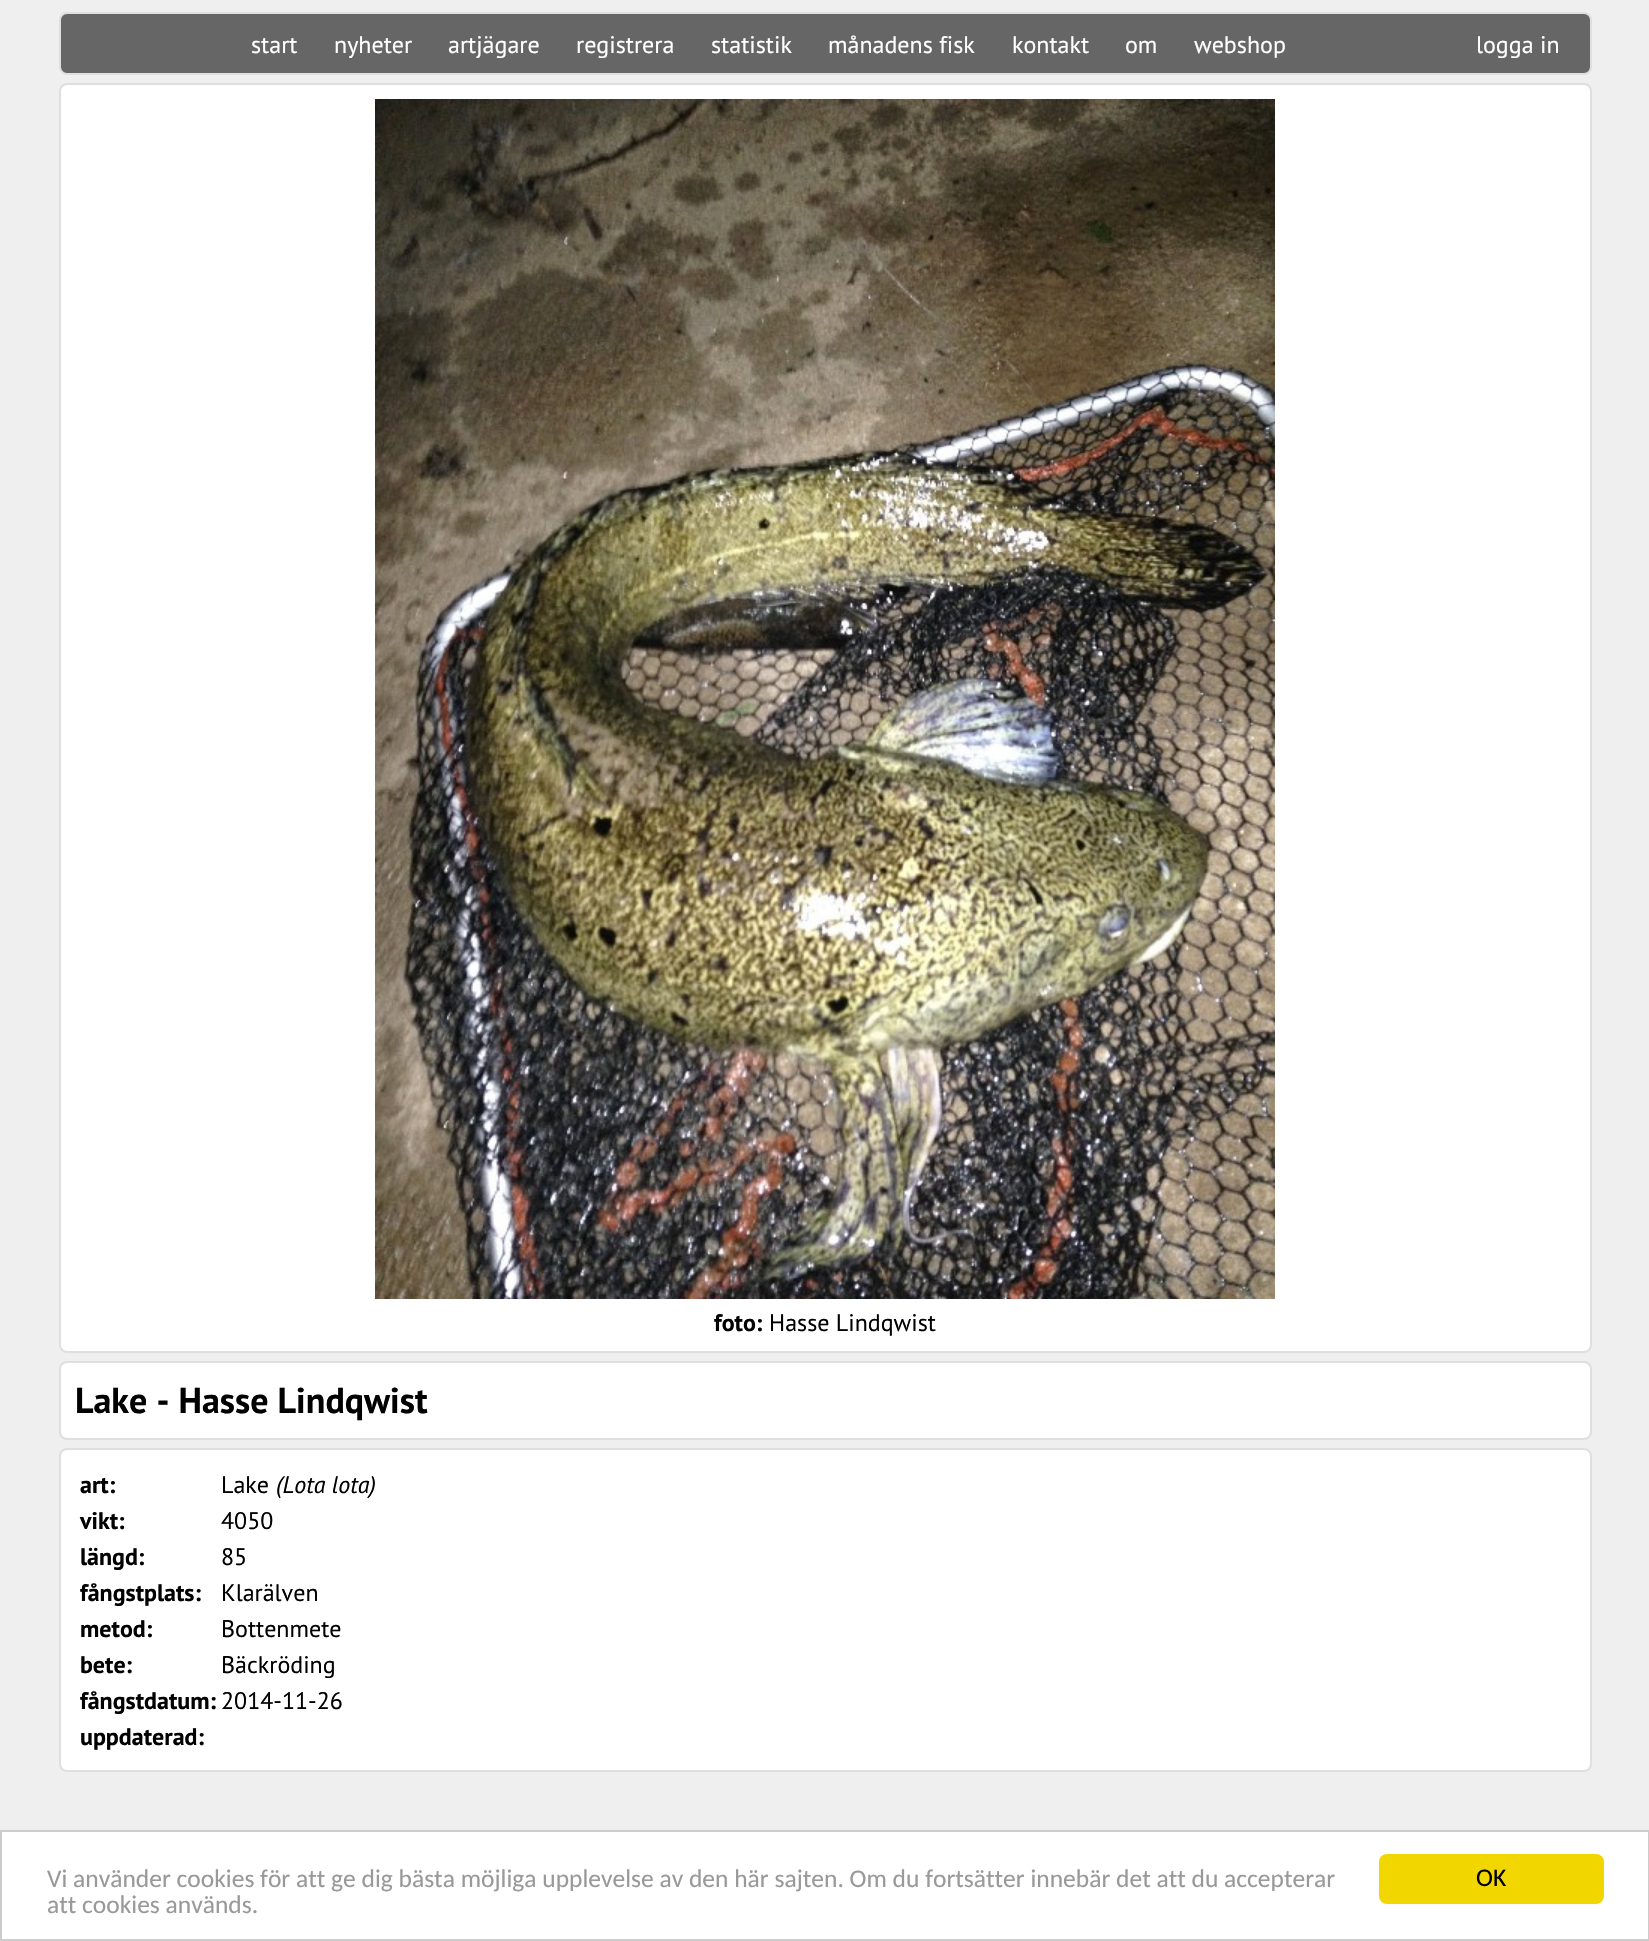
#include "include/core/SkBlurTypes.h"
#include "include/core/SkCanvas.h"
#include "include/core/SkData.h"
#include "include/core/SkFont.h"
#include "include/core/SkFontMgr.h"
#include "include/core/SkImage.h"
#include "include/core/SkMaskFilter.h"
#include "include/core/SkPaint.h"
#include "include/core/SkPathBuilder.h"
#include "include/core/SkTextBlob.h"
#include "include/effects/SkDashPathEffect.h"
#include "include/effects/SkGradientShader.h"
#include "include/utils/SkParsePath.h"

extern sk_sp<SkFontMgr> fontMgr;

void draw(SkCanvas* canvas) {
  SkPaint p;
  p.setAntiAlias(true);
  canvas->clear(SkColorSetRGB(239, 239, 239));
  p.setColor(SkColorSetRGB(102, 102, 102));
  canvas->drawRoundRect(SkRect::MakeLTRB(60, 13, 1591, 74), 7, 7, p);
  p.setStyle(SkPaint::kStroke_Style);
  p.setStrokeWidth(2);
  p.setColor(SkColorSetRGB(223, 223, 223));
  canvas->drawRoundRect(SkRect::MakeLTRB(60, 13, 1591, 74), 7, 7, p);
  p.setStyle(SkPaint::kFill_Style);
  p.setColor(SK_ColorWHITE);
  canvas->drawRoundRect(SkRect::MakeLTRB(60, 84, 1591, 1352), 7, 7, p);
  p.setStyle(SkPaint::kStroke_Style);
  p.setColor(SkColorSetRGB(223, 223, 223));
  canvas->drawRoundRect(SkRect::MakeLTRB(60, 84, 1591, 1352), 7, 7, p);
  canvas->drawImageRect(SkImages::DeferredFromEncodedData(SkData::MakeFromFileName("images/1.png")), SkRect::MakeLTRB(375, 99, 1275, 1299), SkSamplingOptions());
  p.setStyle(SkPaint::kFill_Style);
  p.setColor(SK_ColorWHITE);
  canvas->drawRoundRect(SkRect::MakeLTRB(60, 1362, 1591, 1439), 7, 7, p);
  p.setStyle(SkPaint::kStroke_Style);
  p.setColor(SkColorSetRGB(223, 223, 223));
  canvas->drawRoundRect(SkRect::MakeLTRB(60, 1362, 1591, 1439), 7, 7, p);
  p.setStyle(SkPaint::kFill_Style);
  p.setColor(SK_ColorWHITE);
  canvas->drawRoundRect(SkRect::MakeLTRB(60, 1449, 1591, 1771), 7, 7, p);
  p.setStyle(SkPaint::kStroke_Style);
  p.setColor(SkColorSetRGB(223, 223, 223));
  canvas->drawRoundRect(SkRect::MakeLTRB(60, 1449, 1591, 1771), 7, 7, p);
  p.setStyle(SkPaint::kFill_Style);
  p.setColor(SK_ColorWHITE);
  canvas->drawRect(SkRect::MakeLTRB(1, 1831, 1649, 1940), p);
  p.setStyle(SkPaint::kStroke_Style);
  p.setColor(SkColorSetRGB(204, 204, 204));
  canvas->drawRect(SkRect::MakeLTRB(1, 1831, 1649, 1940), p);
  p.setStyle(SkPaint::kFill_Style);
  p.setColor(SkColorSetRGB(241, 214, 0));
  canvas->drawRoundRect(SkRect::MakeLTRB(1379, 1854, 1604, 1904), 8, 8, p);
  SkFont font1(fontMgr->matchFamilyStyle("PT Sans", SkFontStyle::Normal()), 24);
  font1.setSubpixel(true);
  p.setColor(SK_ColorWHITE);
  canvas->drawString("start", 251, 53, font1, p);
  canvas->drawString("nyheter", 334, 53, font1, p);
  canvas->drawString("artjägare", 448, 53, font1, p);
  canvas->drawString("registrera", 576, 53, font1, p);
  canvas->drawString("statistik", 711, 53, font1, p);
  canvas->drawString("månadens fisk", 828, 53, font1, p);
  canvas->drawString("kontakt", 1012, 53, font1, p);
  canvas->drawString("om", 1125, 53, font1, p);
  canvas->drawString("webshop", 1194, 53, font1, p);
  canvas->drawString("logga in", 1476, 53, font1, p);
  SkFont font2(fontMgr->matchFamilyStyle("PT Sans", SkFontStyle::Bold()), 24);
  font2.setSubpixel(true);
  p.setColor(SK_ColorBLACK);
  canvas->drawString("foto:", 714, 1331, font2, p);
  canvas->drawString("Hasse Lindqwist", 769, 1331, font1, p);
  SkFont font3(fontMgr->matchFamilyStyle("PT Sans", SkFontStyle::Bold()), 36);
  font3.setSubpixel(true);
  canvas->drawString("Lake - Hasse Lindqwist", 75, 1413, font3, p);
  canvas->drawString("art:", 80, 1493, font2, p);
  canvas->drawString("Lake", 221, 1493, font1, p);
  SkFont font4(fontMgr->matchFamilyStyle("PT Sans", SkFontStyle::Italic()), 24);
  font4.setSubpixel(true);
  canvas->drawString("(Lota lota)", 276, 1493, font4, p);
  canvas->drawString("vikt:", 80, 1529, font2, p);
  canvas->drawString("4050", 221, 1529, font1, p);
  canvas->drawString("längd:", 80, 1565, font2, p);
  canvas->drawString("85", 221, 1565, font1, p);
  canvas->drawString("fångstplats:", 80, 1601, font2, p);
  canvas->drawString("Klarälven", 221, 1601, font1, p);
  canvas->drawString("metod:", 80, 1637, font2, p);
  canvas->drawString("Bottenmete", 221, 1637, font1, p);
  canvas->drawString("bete:", 80, 1673, font2, p);
  canvas->drawString("Bäckröding", 221, 1673, font1, p);
  canvas->drawString("fångstdatum:", 80, 1709, font2, p);
  canvas->drawString("2014-11-26", 221, 1709, font1, p);
  canvas->drawString("uppdaterad:", 80, 1745, font2, p);
  SkFont font5(fontMgr->matchFamilyStyle("Carlito", SkFontStyle::Normal()), 25.5f);
  font5.setSubpixel(true);
  p.setColor(SkColorSetRGB(153, 153, 153));
  canvas->drawString("Vi använder cookies för att ge dig bästa möjliga upplevelse av den här sajten. Om du fortsätter innebär det att du accepterar", 47, 1887, font5, p);
  canvas->drawString("att cookies används.", 47, 1913, font5, p);
  p.setColor(SK_ColorBLACK);
  canvas->drawString("OK", 1476, 1886, font5, p);
}
